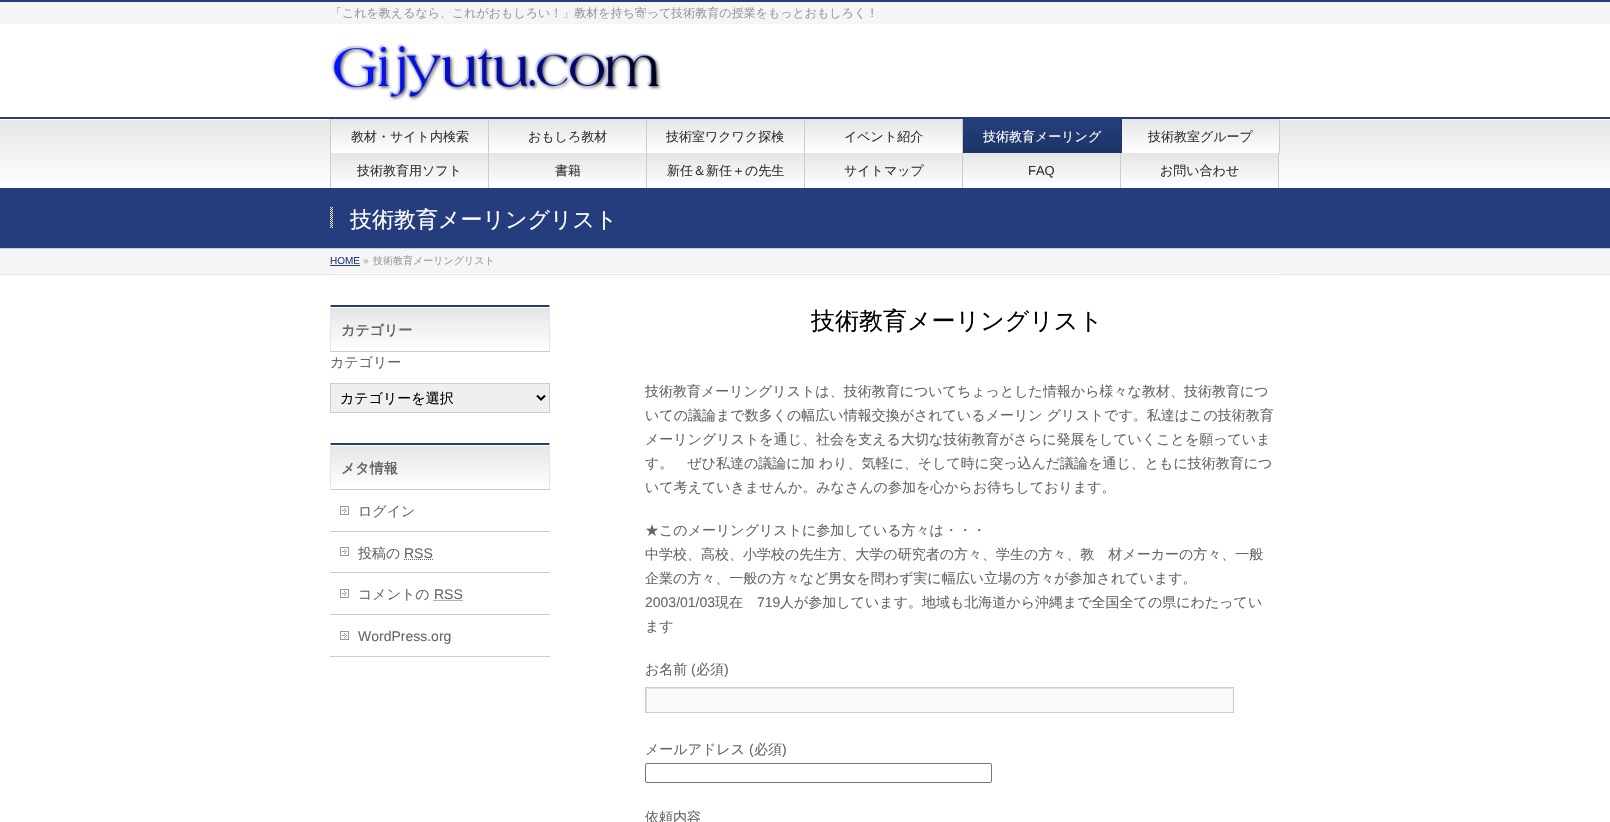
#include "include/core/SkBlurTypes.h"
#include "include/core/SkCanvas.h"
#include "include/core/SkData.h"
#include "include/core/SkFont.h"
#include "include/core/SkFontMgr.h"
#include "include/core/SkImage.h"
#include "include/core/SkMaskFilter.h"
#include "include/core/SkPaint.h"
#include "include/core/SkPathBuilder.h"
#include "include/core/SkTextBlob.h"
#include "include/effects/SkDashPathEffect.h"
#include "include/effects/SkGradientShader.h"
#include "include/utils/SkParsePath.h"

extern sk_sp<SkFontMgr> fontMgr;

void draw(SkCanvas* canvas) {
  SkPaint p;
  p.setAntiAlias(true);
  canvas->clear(SK_ColorWHITE);
  p.setColor(SkColorSetRGB(245, 245, 245));
  canvas->drawRect(SkRect::MakeLTRB(0, 2, 1610, 24), p);
  p.setColor(SkColorSetRGB(37, 61, 125));
  canvas->drawRect(SkRect::MakeLTRB(0, 0, 1610, 2), p);
  canvas->drawImageRect(SkImages::DeferredFromEncodedData(SkData::MakeFromFileName("images/1.png")), SkRect::MakeLTRB(331, 44, 662, 101), SkSamplingOptions());
  {
    const SkColor colors[] = {SkColorSetRGB(229, 229, 229), SK_ColorWHITE};
    const float stops[] = {0, 1};
    const SkPoint ends[] = {{0, 119}, {0, 188}};
    p.setShader(SkGradientShader::MakeLinear(ends, colors, stops, 2, SkTileMode::kClamp));
    p.setAlpha(255);
  }
  canvas->drawRect(SkRect::MakeLTRB(0, 120, 1610, 181), p);
  p.setShader(nullptr);
  p.setColor(SkColorSetRGB(37, 61, 125));
  canvas->drawRect(SkRect::MakeLTRB(0, 117, 1610, 119), p);
  p.setColor(SkColorSetRGB(204, 204, 204));
  canvas->drawRect(SkRect::MakeLTRB(330, 119, 331, 188), p);
  {
    const SkColor colors[] = {SkColorSetRGB(229, 229, 229), SK_ColorWHITE};
    const float stops[] = {0, 1};
    const SkPoint ends[] = {{331, 119}, {331, 153}};
    p.setShader(SkGradientShader::MakeLinear(ends, colors, stops, 2, SkTileMode::kClamp));
    p.setAlpha(255);
  }
  canvas->drawRect(SkRect::MakeLTRB(331, 119, 488, 153), p);
  p.setShader(nullptr);
  p.setColor(SkColorSetRGB(204, 204, 204));
  canvas->drawRect(SkRect::MakeLTRB(488, 119, 489, 188), p);
  {
    const SkColor colors[] = {SkColorSetRGB(229, 229, 229), SK_ColorWHITE};
    const float stops[] = {0, 1};
    const SkPoint ends[] = {{489, 119}, {489, 153}};
    p.setShader(SkGradientShader::MakeLinear(ends, colors, stops, 2, SkTileMode::kClamp));
    p.setAlpha(255);
  }
  canvas->drawRect(SkRect::MakeLTRB(489, 119, 646, 153), p);
  p.setShader(nullptr);
  p.setColor(SkColorSetRGB(204, 204, 204));
  canvas->drawRect(SkRect::MakeLTRB(646, 119, 647, 188), p);
  {
    const SkColor colors[] = {SkColorSetRGB(229, 229, 229), SK_ColorWHITE};
    const float stops[] = {0, 1};
    const SkPoint ends[] = {{647, 119}, {647, 153}};
    p.setShader(SkGradientShader::MakeLinear(ends, colors, stops, 2, SkTileMode::kClamp));
    p.setAlpha(255);
  }
  canvas->drawRect(SkRect::MakeLTRB(647, 119, 804, 153), p);
  p.setShader(nullptr);
  p.setColor(SkColorSetRGB(204, 204, 204));
  canvas->drawRect(SkRect::MakeLTRB(804, 119, 805, 188), p);
  {
    const SkColor colors[] = {SkColorSetRGB(229, 229, 229), SK_ColorWHITE};
    const float stops[] = {0, 1};
    const SkPoint ends[] = {{805, 119}, {805, 153}};
    p.setShader(SkGradientShader::MakeLinear(ends, colors, stops, 2, SkTileMode::kClamp));
    p.setAlpha(255);
  }
  canvas->drawRect(SkRect::MakeLTRB(805, 119, 962, 153), p);
  p.setShader(nullptr);
  p.setColor(SkColorSetRGB(204, 204, 204));
  canvas->drawRect(SkRect::MakeLTRB(962, 119, 963, 188), p);
  {
    const SkColor colors[] = {SkColorSetRGB(37, 61, 125), SkColorSetRGB(29, 53, 101)};
    const float stops[] = {0, 1};
    const SkPoint ends[] = {{1042, 119}, {1042, 153}};
    p.setShader(SkGradientShader::MakeLinear(ends, colors, stops, 2, SkTileMode::kClamp));
    p.setAlpha(255);
  }
  canvas->drawRect(SkRect::MakeLTRB(963, 119, 1121, 153), p);
  p.setShader(nullptr);
  p.setColor(SkColorSetRGB(29, 53, 101));
  canvas->drawRect(SkRect::MakeLTRB(1121, 119, 1122, 153), p);
  {
    const SkColor colors[] = {SkColorSetRGB(229, 229, 229), SK_ColorWHITE};
    const float stops[] = {0, 1};
    const SkPoint ends[] = {{1122, 119}, {1122, 153}};
    p.setShader(SkGradientShader::MakeLinear(ends, colors, stops, 2, SkTileMode::kClamp));
    p.setAlpha(255);
  }
  canvas->drawRect(SkRect::MakeLTRB(1122, 119, 1279, 153), p);
  p.setShader(nullptr);
  p.setColor(SkColorSetRGB(204, 204, 204));
  canvas->drawRect(SkRect::MakeLTRB(1279, 119, 1280, 153), p);
  {
    const SkColor colors[] = {SkColorSetRGB(229, 229, 229), SK_ColorWHITE};
    const float stops[] = {0, 1};
    const SkPoint ends[] = {{331, 153}, {331, 188}};
    p.setShader(SkGradientShader::MakeLinear(ends, colors, stops, 2, SkTileMode::kClamp));
    p.setAlpha(255);
  }
  canvas->drawRect(SkRect::MakeLTRB(331, 153, 488, 182), p);
  {
    const SkColor colors[] = {SkColorSetRGB(229, 229, 229), SK_ColorWHITE};
    const float stops[] = {0, 1};
    const SkPoint ends[] = {{489, 153}, {489, 188}};
    p.setShader(SkGradientShader::MakeLinear(ends, colors, stops, 2, SkTileMode::kClamp));
    p.setAlpha(255);
  }
  canvas->drawRect(SkRect::MakeLTRB(489, 153, 646, 182), p);
  {
    const SkColor colors[] = {SkColorSetRGB(229, 229, 229), SK_ColorWHITE};
    const float stops[] = {0, 1};
    const SkPoint ends[] = {{647, 153}, {647, 188}};
    p.setShader(SkGradientShader::MakeLinear(ends, colors, stops, 2, SkTileMode::kClamp));
    p.setAlpha(255);
  }
  canvas->drawRect(SkRect::MakeLTRB(647, 153, 804, 182), p);
  {
    const SkColor colors[] = {SkColorSetRGB(229, 229, 229), SK_ColorWHITE};
    const float stops[] = {0, 1};
    const SkPoint ends[] = {{805, 153}, {805, 188}};
    p.setShader(SkGradientShader::MakeLinear(ends, colors, stops, 2, SkTileMode::kClamp));
    p.setAlpha(255);
  }
  canvas->drawRect(SkRect::MakeLTRB(805, 153, 962, 182), p);
  {
    const SkColor colors[] = {SkColorSetRGB(229, 229, 229), SK_ColorWHITE};
    const float stops[] = {0, 1};
    const SkPoint ends[] = {{963, 153}, {963, 188}};
    p.setShader(SkGradientShader::MakeLinear(ends, colors, stops, 2, SkTileMode::kClamp));
    p.setAlpha(255);
  }
  canvas->drawRect(SkRect::MakeLTRB(963, 153, 1120, 182), p);
  p.setShader(nullptr);
  p.setColor(SkColorSetRGB(204, 204, 204));
  canvas->drawRect(SkRect::MakeLTRB(1120, 153, 1121, 188), p);
  {
    const SkColor colors[] = {SkColorSetRGB(229, 229, 229), SK_ColorWHITE};
    const float stops[] = {0, 1};
    const SkPoint ends[] = {{1121, 153}, {1121, 188}};
    p.setShader(SkGradientShader::MakeLinear(ends, colors, stops, 2, SkTileMode::kClamp));
    p.setAlpha(255);
  }
  canvas->drawRect(SkRect::MakeLTRB(1121, 153, 1278, 182), p);
  p.setShader(nullptr);
  p.setColor(SkColorSetRGB(204, 204, 204));
  canvas->drawRect(SkRect::MakeLTRB(1278, 153, 1279, 188), p);
  p.setColor(SkColorSetRGB(37, 61, 125));
  canvas->drawRect(SkRect::MakeLTRB(0, 188, 1610, 248), p);
  p.setColor(SkColorSetRGB(204, 204, 204));
  canvas->drawRect(SkRect::MakeLTRB(0, 248, 1610, 249), p);
  canvas->drawImageRect(SkImages::DeferredFromEncodedData(SkData::MakeFromFileName("images/2.png")), SkRect::MakeLTRB(330, 207, 333, 228), SkSamplingOptions());
  p.setColor(SkColorSetRGB(245, 245, 245));
  canvas->drawRect(SkRect::MakeLTRB(0, 249, 1610, 274), p);
  p.setColor(SkColorSetRGB(229, 229, 229));
  canvas->drawRect(SkRect::MakeLTRB(0, 274, 1610, 275), p);
  p.setColor(SK_ColorWHITE);
  canvas->drawRect(SkRect::MakeLTRB(330, 273, 1280, 274), p);
  p.setColor(SkColorSetRGB(37, 61, 125));
  canvas->drawRect(SkRect::MakeLTRB(330, 265, 360, 266), p);
  {
    const SkColor colors[] = {SkColorSetRGB(229, 229, 229), SK_ColorWHITE};
    const float stops[] = {0, 1};
    const SkPoint ends[] = {{331, 307}, {331, 351}};
    p.setShader(SkGradientShader::MakeLinear(ends, colors, stops, 2, SkTileMode::kClamp));
    p.setAlpha(255);
  }
  canvas->drawRect(SkRect::MakeLTRB(331, 308, 549, 347), p);
  p.setShader(nullptr);
  p.setColor(SkColorSetRGB(37, 61, 125));
  canvas->drawPath(SkPathBuilder().moveTo(330, 305).lineTo(550, 305).lineTo(549, 307).lineTo(331, 307).close().detach(), p);
  p.setColor(SkColorSetRGB(229, 229, 229));
  canvas->drawPath(SkPathBuilder().moveTo(550, 305).lineTo(550, 352).lineTo(549, 351).lineTo(549, 307).close().detach(), p);
  p.setColor(SkColorSetRGB(204, 204, 204));
  canvas->drawRect(SkRect::MakeLTRB(330, 351, 550, 352), p);
  p.setColor(SkColorSetRGB(229, 229, 229));
  canvas->drawPath(SkPathBuilder().moveTo(330, 352).lineTo(330, 305).lineTo(331, 307).lineTo(331, 351).close().detach(), p);
  p.setColor(SkColorSetRGB(239, 239, 239));
  canvas->drawRect(SkRect::MakeLTRB(330.5f, 383.5f, 549.5f, 412.5f), p);
  p.setStyle(SkPaint::kStroke_Style);
  p.setStrokeWidth(1);
  p.setColor(SkColorSetRGB(204, 204, 204));
  canvas->drawRect(SkRect::MakeLTRB(330.5f, 383.5f, 549.5f, 412.5f), p);
  p.setStrokeWidth(2);
  p.setColor(SK_ColorBLACK);
  canvas->drawPath(SkPathBuilder().moveTo(537, 395.5f).lineTo(541, 399.5f).lineTo(545, 395.5f).detach(), p);
  p.setStyle(SkPaint::kFill_Style);
  {
    const SkColor colors[] = {SkColorSetRGB(229, 229, 229), SK_ColorWHITE};
    const float stops[] = {0, 1};
    const SkPoint ends[] = {{331, 445}, {331, 489}};
    p.setShader(SkGradientShader::MakeLinear(ends, colors, stops, 2, SkTileMode::kClamp));
    p.setAlpha(255);
  }
  canvas->drawRect(SkRect::MakeLTRB(331, 446, 549, 485), p);
  p.setShader(nullptr);
  p.setColor(SkColorSetRGB(37, 61, 125));
  canvas->drawPath(SkPathBuilder().moveTo(330, 443).lineTo(550, 443).lineTo(549, 445).lineTo(331, 445).close().detach(), p);
  p.setColor(SkColorSetRGB(229, 229, 229));
  canvas->drawPath(SkPathBuilder().moveTo(550, 443).lineTo(550, 490).lineTo(549, 489).lineTo(549, 445).close().detach(), p);
  p.setColor(SkColorSetRGB(204, 204, 204));
  canvas->drawRect(SkRect::MakeLTRB(330, 489, 550, 490), p);
  p.setColor(SkColorSetRGB(229, 229, 229));
  canvas->drawPath(SkPathBuilder().moveTo(330, 490).lineTo(330, 443).lineTo(331, 445).lineTo(331, 489).close().detach(), p);
  p.setColor(SkColorSetRGB(204, 204, 204));
  canvas->drawRect(SkRect::MakeLTRB(330, 531, 550, 532), p);
  canvas->drawImageRect(SkImages::DeferredFromEncodedData(SkData::MakeFromFileName("images/3.png")), SkRect::MakeLTRB(340, 506, 349, 515), SkSamplingOptions());
  canvas->drawRect(SkRect::MakeLTRB(330, 572, 550, 573), p);
  canvas->drawImageRect(SkImages::DeferredFromEncodedData(SkData::MakeFromFileName("images/3.png")), SkRect::MakeLTRB(340, 547, 349, 556), SkSamplingOptions());
  p.setStyle(SkPaint::kStroke_Style);
  p.setStrokeWidth(1);
  p.setColor(SkColorSetRGB(102, 102, 102));
  p.setPathEffect(SkDashPathEffect::Make({{1, 1}}, 0));
  canvas->drawPath(SkPathBuilder().moveTo(404, 559.5f).lineTo(433, 559.5f).detach(), p);
  p.setPathEffect(nullptr);
  p.setStyle(SkPaint::kFill_Style);
  p.setColor(SkColorSetRGB(204, 204, 204));
  canvas->drawRect(SkRect::MakeLTRB(330, 614, 550, 615), p);
  canvas->drawImageRect(SkImages::DeferredFromEncodedData(SkData::MakeFromFileName("images/3.png")), SkRect::MakeLTRB(340, 589, 349, 598), SkSamplingOptions());
  p.setStyle(SkPaint::kStroke_Style);
  p.setColor(SkColorSetRGB(102, 102, 102));
  p.setPathEffect(SkDashPathEffect::Make({{1, 1}}, 0));
  canvas->drawPath(SkPathBuilder().moveTo(433.5f, 600.5f).lineTo(462.5f, 600.5f).detach(), p);
  p.setPathEffect(nullptr);
  p.setStyle(SkPaint::kFill_Style);
  p.setColor(SkColorSetRGB(204, 204, 204));
  canvas->drawRect(SkRect::MakeLTRB(330, 656, 550, 657), p);
  canvas->drawImageRect(SkImages::DeferredFromEncodedData(SkData::MakeFromFileName("images/3.png")), SkRect::MakeLTRB(340, 631, 349, 640), SkSamplingOptions());
  p.setColor(SkColorSetRGB(249, 249, 249));
  canvas->drawRect(SkRect::MakeLTRB(647, 689, 1233, 712), p);
  canvas->save();
  canvas->clipRect(SkRect::MakeLTRB(646, 688, 1233, 712));
  p.setColor(SkColorSetRGB(224, 224, 224));
  canvas->drawPath(SkPathBuilder(SkPathFillType::kEvenOdd).moveTo(547, 589).lineTo(1332, 589).lineTo(1332, 811).lineTo(547, 811).close().moveTo(647, 689).lineTo(1234, 689).lineTo(1234, 713).lineTo(647, 713).close().detach(), p);
  canvas->restore();
  p.setStyle(SkPaint::kStroke_Style);
  p.setColor(SkColorSetRGB(204, 204, 204));
  canvas->drawRect(SkRect::MakeLTRB(645.5f, 687.5f, 1233.5f, 712.5f), p);
  p.setColor(SkColorSetRGB(118, 118, 118));
  canvas->drawRoundRect(SkRect::MakeLTRB(645.5f, 763.5f, 991.5f, 782.5f), 1.5f, 1.5f, p);
  SkFont font1(fontMgr->matchFamilyStyle("WenQuanYi Zen Hei", SkFontStyle(500, SkFontStyle::kNormal_Width, SkFontStyle::kUpright_Slant)), 12);
  font1.setSubpixel(true);
  p.setStyle(SkPaint::kFill_Style);
  p.setColor(SkColorSetRGB(153, 153, 153));
  canvas->drawString("「これを教えるなら、これがおもしろい！」教材を持ち寄って技術教育の授業をもっとおもしろく！", 330, 17, font1, p);
  SkFont font2(fontMgr->matchFamilyStyle("WenQuanYi Zen Hei", SkFontStyle(500, SkFontStyle::kNormal_Width, SkFontStyle::kUpright_Slant)), 13);
  font2.setSubpixel(true);
  p.setColor(SkColorSetRGB(51, 51, 51));
  canvas->drawString("教材・サイト内検索", 351, 141, font2, p);
  canvas->drawString("おもしろ教材", 528, 141, font2, p);
  canvas->drawString("技術室ワクワク探検", 666, 141, font2, p);
  canvas->drawString("イベント紹介", 844, 141, font2, p);
  p.setColor(SK_ColorWHITE);
  canvas->drawString("技術教育メーリング", 983, 141, font2, p);
  p.setColor(SkColorSetRGB(51, 51, 51));
  canvas->drawString("技術教室グループ", 1148, 141, font2, p);
  canvas->drawString("技術教育用ソフト", 357, 175, font2, p);
  canvas->drawString("書籍", 555, 175, font2, p);
  canvas->drawString("新任＆新任＋の先生", 667, 175, font2, p);
  canvas->drawString("サイトマップ", 844, 175, font2, p);
  SkFont font3(fontMgr->matchFamilyStyle("Liberation Sans", SkFontStyle::Normal()), 13);
  font3.setSubpixel(true);
  canvas->drawString("FAQ", 1028, 175, font3, p);
  canvas->drawString("お問い合わせ", 1160, 175, font2, p);
  SkFont font4(fontMgr->matchFamilyStyle("WenQuanYi Zen Hei", SkFontStyle(500, SkFontStyle::kNormal_Width, SkFontStyle::kUpright_Slant)), 22);
  font4.setSubpixel(true);
  p.setColor(SK_ColorWHITE);
  canvas->drawString("技術教育メーリングリスト", 350, 227, font4, p);
  SkFont font5(fontMgr->matchFamilyStyle("Liberation Sans", SkFontStyle::Normal()), 10);
  font5.setSubpixel(true);
  p.setColor(SkColorSetRGB(37, 61, 125));
  canvas->drawString("HOME", 330, 264, font5, p);
  p.setColor(SkColorSetRGB(153, 153, 153));
  canvas->drawString("»", 363, 264, font5, p);
  SkFont font6(fontMgr->matchFamilyStyle("WenQuanYi Zen Hei", SkFontStyle(500, SkFontStyle::kNormal_Width, SkFontStyle::kUpright_Slant)), 10);
  font6.setSubpixel(true);
  canvas->drawString("技術教育メーリングリスト", 373, 264, font6, p);
  SkFont font7(fontMgr->matchFamilyStyle("WenQuanYi Zen Hei", SkFontStyle::Bold()), 14);
  font7.setSubpixel(true);
  p.setColor(SkColorSetRGB(102, 102, 102));
  canvas->drawString("カテゴリー", 341, 335, font7, p);
  SkFont font8(fontMgr->matchFamilyStyle("WenQuanYi Zen Hei", SkFontStyle(500, SkFontStyle::kNormal_Width, SkFontStyle::kUpright_Slant)), 14);
  font8.setSubpixel(true);
  canvas->drawString("カテゴリー", 330, 367, font8, p);
  p.setColor(SK_ColorBLACK);
  canvas->drawString("カテゴリーを選択", 340, 403, font8, p);
  p.setColor(SkColorSetRGB(102, 102, 102));
  canvas->drawString("メタ情報", 341, 473, font7, p);
  canvas->drawString("ログイン", 358, 516, font8, p);
  canvas->drawString("投稿の", 358, 558, font8, p);
  SkFont font9(fontMgr->matchFamilyStyle("Liberation Sans", SkFontStyle::Normal()), 14);
  font9.setSubpixel(true);
  canvas->drawString("RSS", 404, 558, font9, p);
  canvas->drawString("コメントの", 358, 599, font8, p);
  canvas->drawString("RSS", 434, 599, font9, p);
  canvas->drawString("WordPress.org", 358, 641, font9, p);
  SkFont font10(fontMgr->matchFamilyStyle("WenQuanYi Zen Hei", SkFontStyle(500, SkFontStyle::kNormal_Width, SkFontStyle::kUpright_Slant)), 24);
  font10.setSubpixel(true);
  p.setColor(SK_ColorBLACK);
  canvas->drawString("技術教育メーリングリスト", 811, 329, font10, p);
  p.setColor(SkColorSetRGB(102, 102, 102));
  canvas->drawString("技術教育メーリングリストは、技術教育についてちょっとした情報から様々な教材、技術教育につ", 645, 396, font8, p);
  canvas->drawString("いての議論まで数多くの幅広い情報交換がされているメーリン グリストです。私達はこの技術教育", 645, 420, font8, p);
  canvas->drawString("メーリングリストを通じ、社会を支える大切な技術教育がさらに発展をしていくことを願っていま", 645, 444, font8, p);
  canvas->drawString("す。　ぜひ私達の議論に加 わり、気軽に、そして時に突っ込んだ議論を通じ、ともに技術教育につ", 645, 468, font8, p);
  canvas->drawString("いて考えていきませんか。みなさんの参加を心からお待ちしております。", 645, 492, font8, p);
  canvas->drawString("★このメーリングリストに参加している方々は・・・", 645, 535, font8, p);
  canvas->drawString("中学校、高校、小学校の先生方、大学の研究者の方々、学生の方々、教　材メーカーの方々、一般", 645, 559, font8, p);
  canvas->drawString("企業の方々、一般の方々など男女を問わず実に幅広い立場の方々が参加されています。", 645, 583, font8, p);
  canvas->drawString("2003/01/03", 645, 607, font9, p);
  canvas->drawString("現在", 715, 607, font8, p);
  canvas->drawString("719", 757, 607, font9, p);
  canvas->drawString("人が参加しています。地域も北海道から沖縄まで全国全ての県にわたってい", 780, 607, font8, p);
  canvas->drawString("ます", 645, 631, font8, p);
  canvas->drawString("お名前", 645, 674, font8, p);
  canvas->drawString("(", 691, 674, font9, p);
  canvas->drawString("必須", 696, 674, font8, p);
  canvas->drawString(")", 724, 674, font9, p);
  canvas->drawString("メールアドレス", 645, 754, font8, p);
  canvas->drawString("(", 749, 754, font9, p);
  canvas->drawString("必須", 754, 754, font8, p);
  canvas->drawString(")", 782, 754, font9, p);
  canvas->drawString("依頼内容", 645, 822, font8, p);
}
